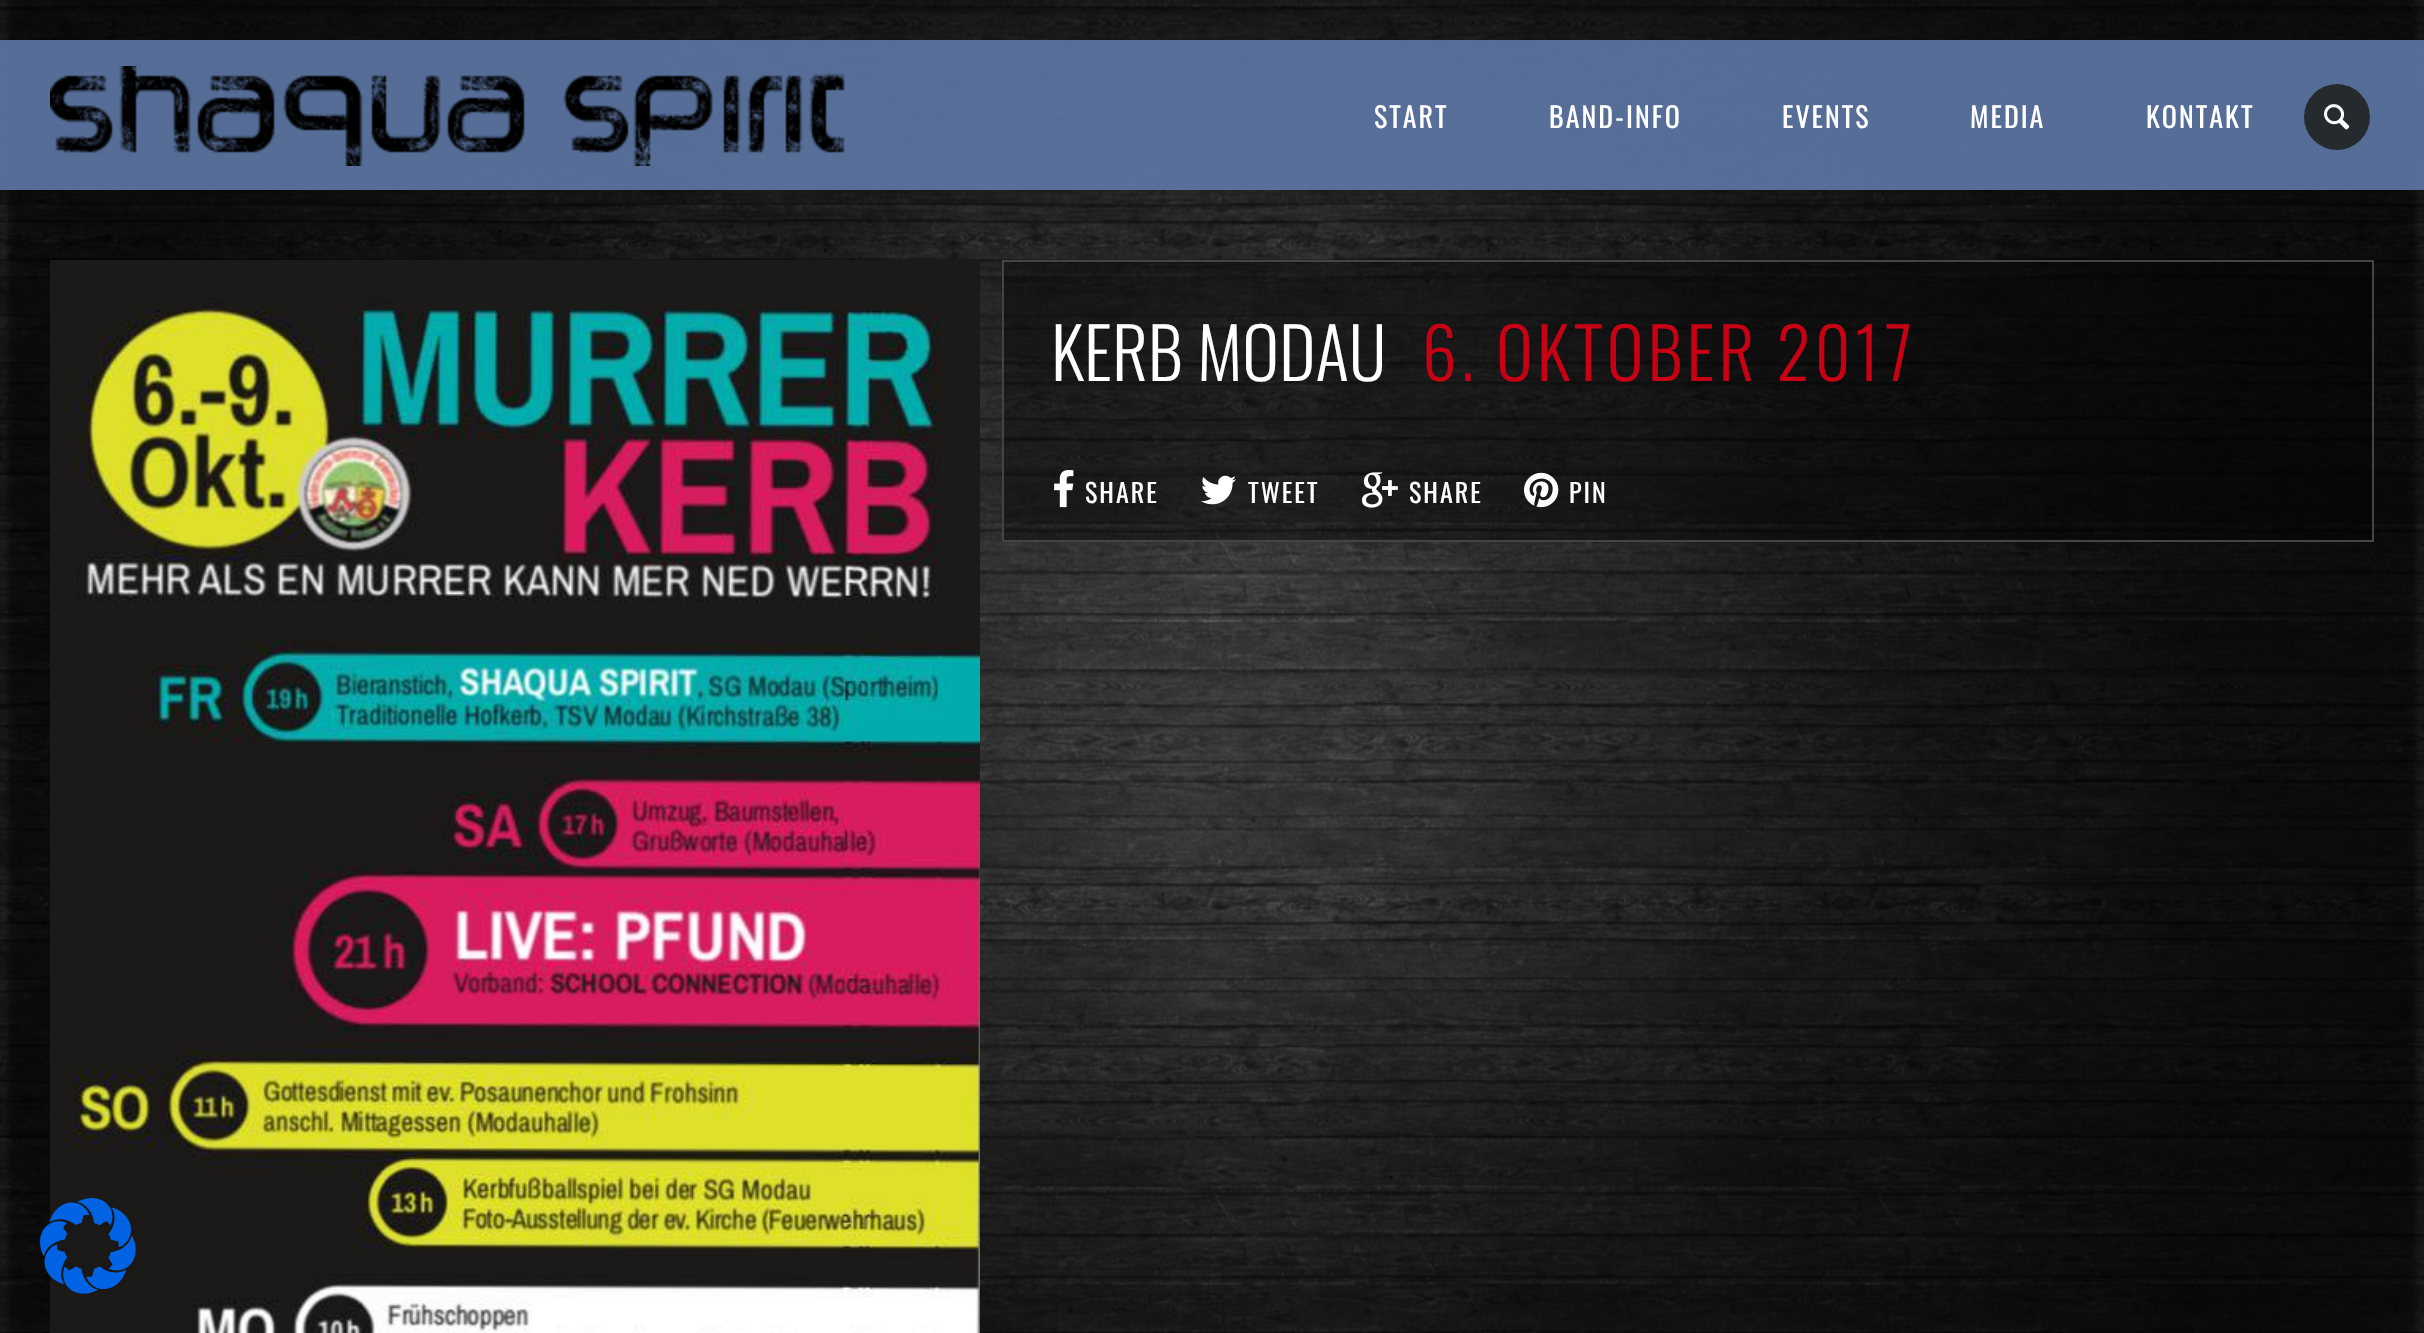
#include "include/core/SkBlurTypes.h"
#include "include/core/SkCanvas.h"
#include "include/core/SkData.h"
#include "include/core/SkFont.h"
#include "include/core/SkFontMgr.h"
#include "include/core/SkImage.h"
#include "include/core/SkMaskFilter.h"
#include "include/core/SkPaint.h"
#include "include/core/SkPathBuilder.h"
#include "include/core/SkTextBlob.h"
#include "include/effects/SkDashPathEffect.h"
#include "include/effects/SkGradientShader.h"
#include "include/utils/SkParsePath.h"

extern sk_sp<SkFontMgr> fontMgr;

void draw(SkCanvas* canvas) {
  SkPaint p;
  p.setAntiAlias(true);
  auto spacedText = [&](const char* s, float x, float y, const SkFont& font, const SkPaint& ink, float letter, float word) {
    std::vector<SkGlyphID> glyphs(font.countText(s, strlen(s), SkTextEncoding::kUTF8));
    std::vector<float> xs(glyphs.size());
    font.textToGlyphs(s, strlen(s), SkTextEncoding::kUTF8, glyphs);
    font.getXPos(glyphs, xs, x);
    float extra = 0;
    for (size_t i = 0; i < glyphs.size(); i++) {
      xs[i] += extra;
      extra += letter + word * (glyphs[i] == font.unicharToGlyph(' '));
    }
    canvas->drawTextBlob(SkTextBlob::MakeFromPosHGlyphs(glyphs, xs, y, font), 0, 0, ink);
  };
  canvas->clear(SK_ColorWHITE);
  canvas->drawImageRect(SkImages::DeferredFromEncodedData(SkData::MakeFromFileName("images/1.png")), SkRect::MakeLTRB(0, 0, 2424, 1333), SkSamplingOptions());
  p.setColor(SkColorSetARGB(230, 92, 119, 165));
  canvas->drawRect(SkRect::MakeLTRB(0, 40, 2424, 190), p);
  canvas->drawImageRect(SkImages::DeferredFromEncodedData(SkData::MakeFromFileName("images/2.png")), SkRect::MakeLTRB(50, 66, 845, 166), SkSamplingOptions());
  p.setColor(SkColorSetRGB(37, 42, 47));
  canvas->drawCircle(2337, 117, 33, p);
  canvas->drawImageRect(SkImages::DeferredFromEncodedData(SkData::MakeFromFileName("images/3.png")), SkRect::MakeLTRB(2324, 104, 2350, 130), SkSamplingOptions());
  canvas->drawImageRect(SkImages::DeferredFromEncodedData(SkData::MakeFromFileName("images/4.png")), SkRect::MakeLTRB(50, 260, 980, 1333), SkSamplingOptions());
  p.setColor(SkColorSetARGB(102, 0, 0, 0));
  canvas->drawRect(SkRect::MakeLTRB(1003, 261, 2373, 541), p);
  p.setStyle(SkPaint::kStroke_Style);
  p.setStrokeWidth(2);
  p.setColor(SkColorSetRGB(67, 69, 67));
  canvas->drawRect(SkRect::MakeLTRB(1003, 261, 2373, 541), p);
  canvas->drawImageRect(SkImages::DeferredFromEncodedData(SkData::MakeFromFileName("images/5.png")), SkRect::MakeLTRB(1054, 470, 1074, 508), SkSamplingOptions());
  canvas->drawImageRect(SkImages::DeferredFromEncodedData(SkData::MakeFromFileName("images/6.png")), SkRect::MakeLTRB(1201, 475, 1236, 505), SkSamplingOptions());
  canvas->drawImageRect(SkImages::DeferredFromEncodedData(SkData::MakeFromFileName("images/7.png")), SkRect::MakeLTRB(1362, 472, 1398, 508), SkSamplingOptions());
  canvas->drawImageRect(SkImages::DeferredFromEncodedData(SkData::MakeFromFileName("images/8.png")), SkRect::MakeLTRB(1524, 472, 1559, 508), SkSamplingOptions());
  canvas->drawImageRect(SkImages::DeferredFromEncodedData(SkData::MakeFromFileName("images/9.png")), SkRect::MakeLTRB(40, 1198, 136, 1294), SkSamplingOptions());
  SkFont font1(fontMgr->matchFamilyStyle("Oswald", SkFontStyle::Normal()), 28);
  font1.setSubpixel(true);
  p.setStyle(SkPaint::kFill_Style);
  p.setColor(SK_ColorWHITE);
  spacedText("START", 1374, 128, font1, p, 2, 0);
  spacedText("BAND-INFO", 1549, 128, font1, p, 2, 0);
  spacedText("EVENTS", 1782, 128, font1, p, 2, 0);
  spacedText("MEDIA", 1970, 128, font1, p, 2, 0);
  spacedText("KONTAKT", 2146, 128, font1, p, 2, 0);
  SkFont font2(fontMgr->matchFamilyStyle("Oswald", SkFontStyle(300, SkFontStyle::kNormal_Width, SkFontStyle::kUpright_Slant)), 70);
  font2.setSubpixel(true);
  canvas->drawString("KERB MODAU", 1051, 381, font2, p);
  p.setColor(SkColorSetRGB(201, 0, 20));
  spacedText("6. OKTOBER 2017", 1422, 381, font2, p, 4, 0);
  SkFont font3(fontMgr->matchFamilyStyle("Oswald", SkFontStyle::Normal()), 26);
  font3.setSubpixel(true);
  p.setColor(SK_ColorWHITE);
  spacedText("SHARE", 1085, 503, font3, p, 2, 0);
  spacedText("TWEET", 1248, 503, font3, p, 2, 0);
  spacedText("SHARE", 1409, 503, font3, p, 2, 0);
  spacedText("PIN", 1569, 503, font3, p, 2, 0);
}
